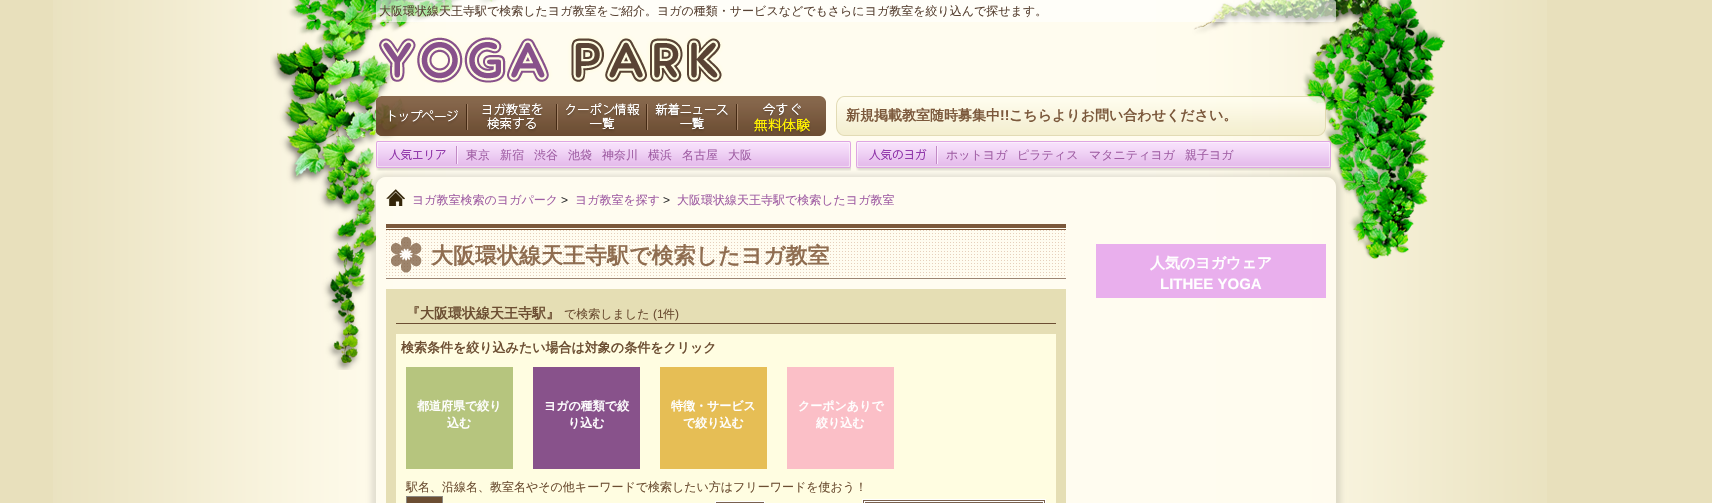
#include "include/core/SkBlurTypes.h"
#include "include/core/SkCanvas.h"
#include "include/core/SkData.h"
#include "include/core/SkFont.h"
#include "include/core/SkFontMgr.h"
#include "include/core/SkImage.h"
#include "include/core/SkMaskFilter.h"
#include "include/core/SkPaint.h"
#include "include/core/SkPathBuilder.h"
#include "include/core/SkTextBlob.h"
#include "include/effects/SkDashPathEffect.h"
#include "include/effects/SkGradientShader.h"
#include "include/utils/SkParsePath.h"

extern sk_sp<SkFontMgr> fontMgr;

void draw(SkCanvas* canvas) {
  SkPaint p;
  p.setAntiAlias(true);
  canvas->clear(SkColorSetRGB(232, 224, 188));
  canvas->drawImageRect(SkImages::DeferredFromEncodedData(SkData::MakeFromFileName("images/1.png")), SkRect::MakeLTRB(53, 0, 1547, 503), SkSamplingOptions());
  canvas->drawImageRect(SkImages::DeferredFromEncodedData(SkData::MakeFromFileName("images/2.png")), SkRect::MakeLTRB(270, 0, 1445, 370), SkSamplingOptions());
  p.setColor(SkColorSetARGB(153, 255, 255, 255));
  canvas->drawRoundRect(SkRect::MakeLTRB(376, 0, 1336, 22), 3, 3, p);
  canvas->drawImageRect(SkImages::DeferredFromEncodedData(SkData::MakeFromFileName("images/3.png")), SkRect::MakeLTRB(378, 35, 723, 85), SkSamplingOptions());
  canvas->drawImageRect(SkImages::DeferredFromEncodedData(SkData::MakeFromFileName("images/4.png")), SkRect::MakeLTRB(376, 96, 466, 136), SkSamplingOptions());
  canvas->drawImageRect(SkImages::DeferredFromEncodedData(SkData::MakeFromFileName("images/5.png")), SkRect::MakeLTRB(466, 96, 556, 136), SkSamplingOptions());
  canvas->drawImageRect(SkImages::DeferredFromEncodedData(SkData::MakeFromFileName("images/6.png")), SkRect::MakeLTRB(556, 96, 646, 136), SkSamplingOptions());
  canvas->drawImageRect(SkImages::DeferredFromEncodedData(SkData::MakeFromFileName("images/7.png")), SkRect::MakeLTRB(646, 96, 736, 136), SkSamplingOptions());
  canvas->drawImageRect(SkImages::DeferredFromEncodedData(SkData::MakeFromFileName("images/8.png")), SkRect::MakeLTRB(736, 96, 826, 136), SkSamplingOptions());
  canvas->drawImageRect(SkImages::DeferredFromEncodedData(SkData::MakeFromFileName("images/9.png")), SkRect::MakeLTRB(836, 96, 1326, 136), SkSamplingOptions());
  canvas->save();
  canvas->clipPath(SkPathBuilder(SkPathFillType::kEvenOdd).moveTo(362, 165).lineTo(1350, 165).lineTo(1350, 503).lineTo(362, 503).close().moveTo(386, 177).lineTo(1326, 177).cubicTo(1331.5f, 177, 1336, 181.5f, 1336, 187).lineTo(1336, 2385).cubicTo(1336, 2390.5f, 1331.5f, 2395, 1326, 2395).lineTo(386, 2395).cubicTo(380.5f, 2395, 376, 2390.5f, 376, 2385).lineTo(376, 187).cubicTo(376, 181.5f, 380.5f, 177, 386, 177).close().detach(), true);
  p.setColor(SkColorSetARGB(26, 1, 1, 1));
  p.setMaskFilter(SkMaskFilter::MakeBlur(kNormal_SkBlurStyle, 2.5f));
  canvas->drawRoundRect(SkRect::MakeLTRB(371, 174, 1341, 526), 15, 15, p);
  p.setMaskFilter(nullptr);
  canvas->restore();
  canvas->drawImageRect(SkImages::DeferredFromEncodedData(SkData::MakeFromFileName("images/10.png")), SkRect::MakeLTRB(376, 141, 851, 171), SkSamplingOptions());
  canvas->drawImageRect(SkImages::DeferredFromEncodedData(SkData::MakeFromFileName("images/11.png")), SkRect::MakeLTRB(856, 141, 1331, 171), SkSamplingOptions());
  canvas->drawImageRect(SkImages::DeferredFromEncodedData(SkData::MakeFromFileName("images/12.png")), SkRect::MakeLTRB(376, 177, 1336, 503), SkSamplingOptions());
  canvas->drawImageRect(SkImages::DeferredFromEncodedData(SkData::MakeFromFileName("images/13.png")), SkRect::MakeLTRB(386, 189, 405, 206), SkSamplingOptions());
  canvas->drawImageRect(SkImages::DeferredFromEncodedData(SkData::MakeFromFileName("images/14.png")), SkRect::MakeLTRB(386, 224, 1066, 279), SkSamplingOptions());
  p.setColor(SkColorSetRGB(255, 253, 225));
  canvas->drawRect(SkRect::MakeLTRB(396, 334, 1056, 503), p);
  p.setColor(SkColorSetRGB(229, 222, 180));
  canvas->drawRect(SkRect::MakeLTRB(396, 289, 1056, 334), p);
  canvas->drawRect(SkRect::MakeLTRB(1056, 289, 1066, 503), p);
  canvas->drawRect(SkRect::MakeLTRB(386, 289, 396, 503), p);
  p.setColor(SkColorSetRGB(108, 78, 50));
  canvas->drawRect(SkRect::MakeLTRB(396, 323, 1056, 324), p);
  p.setColor(SkColorSetRGB(182, 197, 126));
  canvas->drawRect(SkRect::MakeLTRB(406, 367, 513, 469), p);
  p.setColor(SkColorSetRGB(136, 82, 139));
  canvas->drawRect(SkRect::MakeLTRB(533, 367, 640, 469), p);
  p.setColor(SkColorSetRGB(230, 190, 85));
  canvas->drawRect(SkRect::MakeLTRB(660, 367, 767, 469), p);
  p.setColor(SkColorSetRGB(251, 191, 199));
  canvas->drawRect(SkRect::MakeLTRB(787, 367, 894, 469), p);
  p.setColor(SkColorSetRGB(108, 78, 50));
  canvas->drawRect(SkRect::MakeLTRB(406.5f, 496.5f, 442.5f, 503.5f), p);
  p.setStyle(SkPaint::kStroke_Style);
  p.setStrokeWidth(1);
  p.setColor(SkColorSetRGB(139, 136, 129));
  canvas->drawRect(SkRect::MakeLTRB(406.5f, 496.5f, 442.5f, 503.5f), p);
  p.setStyle(SkPaint::kFill_Style);
  p.setColor(SkColorSetRGB(121, 96, 78));
  canvas->drawRect(SkRect::MakeLTRB(715.5f, 501.5f, 764.5f, 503.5f), p);
  p.setStyle(SkPaint::kStroke_Style);
  p.setColor(SK_ColorWHITE);
  canvas->drawRect(SkRect::MakeLTRB(715.5f, 501.5f, 764.5f, 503.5f), p);
  p.setStyle(SkPaint::kFill_Style);
  p.setColor(SkColorSetRGB(121, 96, 78));
  canvas->drawRect(SkRect::MakeLTRB(862.5f, 499.5f, 1045.5f, 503.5f), p);
  p.setStyle(SkPaint::kStroke_Style);
  p.setColor(SK_ColorWHITE);
  canvas->drawRect(SkRect::MakeLTRB(862.5f, 499.5f, 1045.5f, 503.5f), p);
  canvas->drawRect(SkRect::MakeLTRB(864.5f, 501.5f, 1043.5f, 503.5f), p);
  p.setStyle(SkPaint::kFill_Style);
  p.setColor(SkColorSetRGB(233, 175, 237));
  canvas->drawRect(SkRect::MakeLTRB(1096, 244, 1326, 298), p);
  SkFont font1(fontMgr->matchFamilyStyle("WenQuanYi Zen Hei", SkFontStyle(500, SkFontStyle::kNormal_Width, SkFontStyle::kUpright_Slant)), 12);
  font1.setSubpixel(true);
  p.setColor(SkColorSetRGB(89, 67, 52));
  canvas->drawString("大阪環状線天王寺駅で検索したヨガ教室をご紹介。ヨガの種類・サービスなどでもさらにヨガ教室を絞り込んで探せます。", 379, 15, font1, p);
  SkFont font2(fontMgr->matchFamilyStyle("WenQuanYi Zen Hei", SkFontStyle::Bold()), 14);
  font2.setSubpixel(true);
  p.setColor(SkColorSetRGB(123, 88, 59));
  canvas->drawString("新規掲載教室随時募集中", 846, 120, font2, p);
  SkFont font3(fontMgr->matchFamilyStyle("Liberation Sans", SkFontStyle::Bold()), 14);
  font3.setSubpixel(true);
  canvas->drawString("!!", 1000, 120, font3, p);
  canvas->drawString("こちらよりお問い合わせください。", 1009, 120, font2, p);
  p.setColor(SkColorSetRGB(160, 94, 164));
  canvas->drawString("東京", 466, 159, font1, p);
  canvas->drawString("新宿", 500, 159, font1, p);
  canvas->drawString("渋谷", 534, 159, font1, p);
  canvas->drawString("池袋", 568, 159, font1, p);
  canvas->drawString("神奈川", 602, 159, font1, p);
  canvas->drawString("横浜", 648, 159, font1, p);
  canvas->drawString("名古屋", 682, 159, font1, p);
  canvas->drawString("大阪", 728, 159, font1, p);
  canvas->drawString("ホットヨガ", 946, 159, font1, p);
  canvas->drawString("ピラティス", 1017, 159, font1, p);
  canvas->drawString("マタニティヨガ", 1089, 159, font1, p);
  canvas->drawString("親子ヨガ", 1185, 159, font1, p);
  canvas->drawString("ヨガ教室検索のヨガパーク", 412, 204, font1, p);
  SkFont font4(fontMgr->matchFamilyStyle("Liberation Sans", SkFontStyle::Normal()), 12);
  font4.setSubpixel(true);
  p.setColor(SkColorSetRGB(51, 51, 51));
  canvas->drawString(">", 561, 204, font4, p);
  p.setColor(SkColorSetRGB(160, 94, 164));
  canvas->drawString("ヨガ教室を探す", 575, 204, font1, p);
  p.setColor(SkColorSetRGB(51, 51, 51));
  canvas->drawString(">", 663, 204, font4, p);
  p.setColor(SkColorSetRGB(160, 94, 164));
  canvas->drawString("大阪環状線天王寺駅で検索したヨガ教室", 677, 204, font1, p);
  SkFont font5(fontMgr->matchFamilyStyle("WenQuanYi Zen Hei", SkFontStyle::Bold()), 22);
  font5.setSubpixel(true);
  p.setColor(SkColorSetRGB(143, 109, 80));
  canvas->drawString("大阪環状線天王寺駅で検索したヨガ教室", 431, 263, font5, p);
  p.setColor(SkColorSetRGB(108, 78, 50));
  canvas->drawString("『大阪環状線天王寺駅』", 406, 318, font2, p);
  canvas->drawString("で検索しました", 564, 318, font1, p);
  canvas->drawString("(1", 653, 318, font4, p);
  canvas->drawString("件", 663, 318, font1, p);
  canvas->drawString(")", 675, 318, font4, p);
  SkFont font6(fontMgr->matchFamilyStyle("WenQuanYi Zen Hei", SkFontStyle::Bold()), 13);
  font6.setSubpixel(true);
  canvas->drawString("検索条件を絞り込みたい場合は対象の条件をクリック", 401, 352, font6, p);
  SkFont font7(fontMgr->matchFamilyStyle("WenQuanYi Zen Hei", SkFontStyle::Bold()), 12);
  font7.setSubpixel(true);
  p.setColor(SK_ColorWHITE);
  canvas->drawString("都道府県で絞り", 417, 410, font7, p);
  canvas->drawString("込む", 447, 427, font7, p);
  canvas->drawString("ヨガの種類で絞", 544, 410, font7, p);
  canvas->drawString("り込む", 568, 427, font7, p);
  canvas->drawString("特徴・サービス", 671, 410, font7, p);
  canvas->drawString("で絞り込む", 683, 427, font7, p);
  canvas->drawString("クーポンありで", 798, 410, font7, p);
  canvas->drawString("絞り込む", 816, 427, font7, p);
  p.setColor(SkColorSetRGB(108, 78, 50));
  canvas->drawString("駅名、沿線名、教室名やその他キーワードで検索したい方はフリーワードを使おう！", 406, 491, font1, p);
  SkFont font8(fontMgr->matchFamilyStyle("WenQuanYi Zen Hei", SkFontStyle::Bold()), 15);
  font8.setSubpixel(true);
  p.setColor(SK_ColorWHITE);
  canvas->drawString("人気のヨガウェア", 1150, 268, font8, p);
  SkFont font9(fontMgr->matchFamilyStyle("Liberation Sans", SkFontStyle::Bold()), 15);
  font9.setSubpixel(true);
  canvas->drawString("LITHEE YOGA", 1160, 289, font9, p);
}
